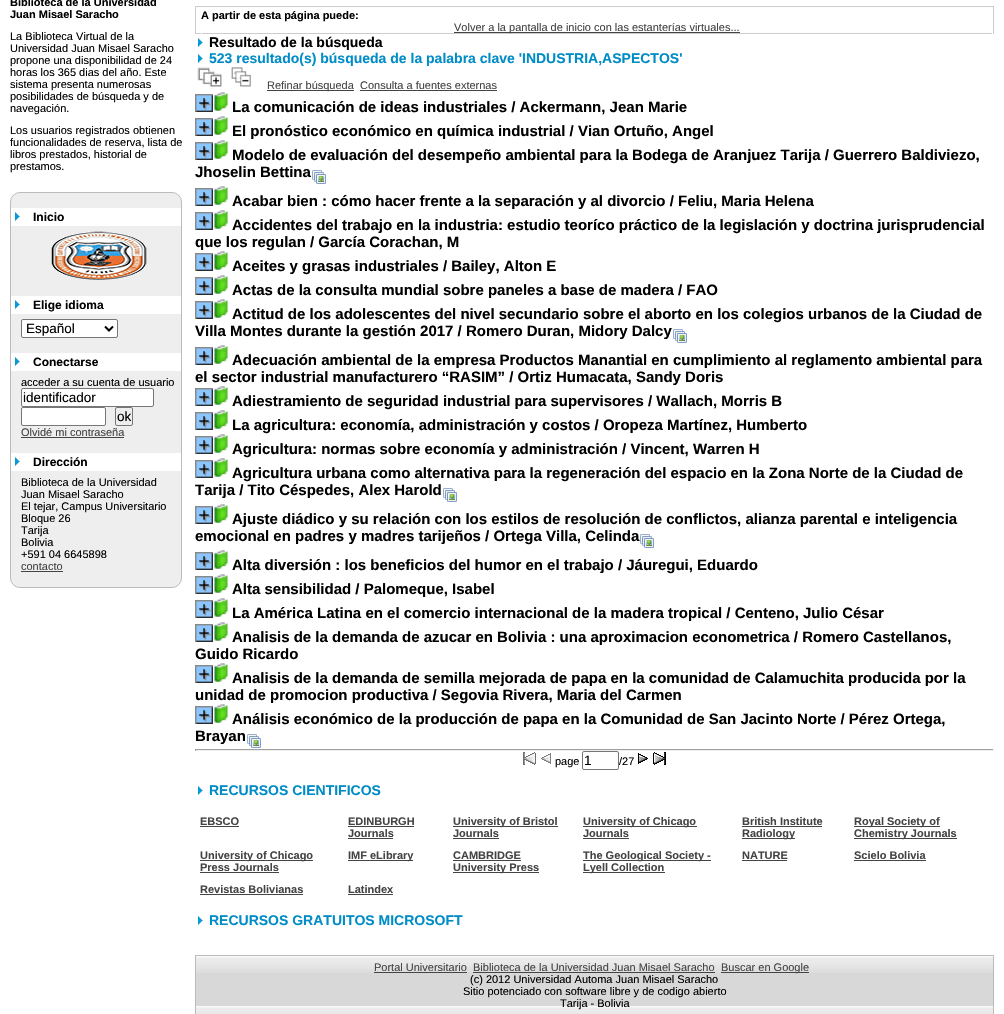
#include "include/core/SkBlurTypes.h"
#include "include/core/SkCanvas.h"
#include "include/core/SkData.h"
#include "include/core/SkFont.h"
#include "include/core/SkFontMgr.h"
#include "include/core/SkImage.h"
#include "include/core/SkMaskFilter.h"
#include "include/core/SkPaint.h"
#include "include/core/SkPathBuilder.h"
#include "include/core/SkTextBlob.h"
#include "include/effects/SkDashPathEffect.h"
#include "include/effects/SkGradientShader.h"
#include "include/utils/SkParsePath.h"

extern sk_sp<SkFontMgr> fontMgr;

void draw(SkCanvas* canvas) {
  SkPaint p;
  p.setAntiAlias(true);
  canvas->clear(SK_ColorWHITE);
  p.setStyle(SkPaint::kStroke_Style);
  p.setStrokeWidth(1);
  p.setColor(SkColorSetRGB(204, 204, 204));
  canvas->drawRect(SkRect::MakeLTRB(195.5f, 6.5f, 993.5f, 33.5f), p);
  p.setStyle(SkPaint::kFill_Style);
  p.setColor(SK_ColorWHITE);
  canvas->drawRect(SkRect::MakeLTRB(992, 33, 993, 34), p);
  canvas->drawRect(SkRect::MakeLTRB(201, 33, 202, 34), p);
  p.setColor(SkColorSetRGB(68, 68, 68));
  canvas->drawRect(SkRect::MakeLTRB(454, 32, 740, 33), p);
  canvas->drawImageRect(SkImages::DeferredFromEncodedData(SkData::MakeFromFileName("images/1.png")), SkRect::MakeLTRB(198, 38, 203, 47), SkSamplingOptions());
  canvas->drawImageRect(SkImages::DeferredFromEncodedData(SkData::MakeFromFileName("images/1.png")), SkRect::MakeLTRB(198, 54, 203, 63), SkSamplingOptions());
  canvas->drawImageRect(SkImages::DeferredFromEncodedData(SkData::MakeFromFileName("images/2.png")), SkRect::MakeLTRB(197, 67, 222, 87), SkSamplingOptions());
  canvas->drawImageRect(SkImages::DeferredFromEncodedData(SkData::MakeFromFileName("images/3.png")), SkRect::MakeLTRB(231, 67, 251, 87), SkSamplingOptions());
  canvas->drawRect(SkRect::MakeLTRB(267, 90, 354, 91), p);
  canvas->drawRect(SkRect::MakeLTRB(360, 90, 497, 91), p);
  p.setColor(SkColorSetRGB(140, 198, 255));
  canvas->drawRect(SkRect::MakeLTRB(196, 95, 212, 111), p);
  canvas->drawImageRect(SkImages::DeferredFromEncodedData(SkData::MakeFromFileName("images/4.png")), SkRect::MakeLTRB(195, 94, 213, 112), SkSamplingOptions());
  canvas->drawImageRect(SkImages::DeferredFromEncodedData(SkData::MakeFromFileName("images/5.png")), SkRect::MakeLTRB(213, 92, 228, 111), SkSamplingOptions());
  canvas->drawRect(SkRect::MakeLTRB(196, 119, 212, 135), p);
  canvas->drawImageRect(SkImages::DeferredFromEncodedData(SkData::MakeFromFileName("images/4.png")), SkRect::MakeLTRB(195, 118, 213, 136), SkSamplingOptions());
  canvas->drawImageRect(SkImages::DeferredFromEncodedData(SkData::MakeFromFileName("images/5.png")), SkRect::MakeLTRB(213, 116, 228, 135), SkSamplingOptions());
  canvas->drawRect(SkRect::MakeLTRB(196, 143, 212, 159), p);
  canvas->drawImageRect(SkImages::DeferredFromEncodedData(SkData::MakeFromFileName("images/4.png")), SkRect::MakeLTRB(195, 142, 213, 160), SkSamplingOptions());
  canvas->drawImageRect(SkImages::DeferredFromEncodedData(SkData::MakeFromFileName("images/5.png")), SkRect::MakeLTRB(213, 140, 228, 159), SkSamplingOptions());
  canvas->drawImageRect(SkImages::DeferredFromEncodedData(SkData::MakeFromFileName("images/6.png")), SkRect::MakeLTRB(312, 170, 326, 184), SkSamplingOptions());
  canvas->drawRect(SkRect::MakeLTRB(196, 189, 212, 205), p);
  canvas->drawImageRect(SkImages::DeferredFromEncodedData(SkData::MakeFromFileName("images/4.png")), SkRect::MakeLTRB(195, 188, 213, 206), SkSamplingOptions());
  canvas->drawImageRect(SkImages::DeferredFromEncodedData(SkData::MakeFromFileName("images/5.png")), SkRect::MakeLTRB(213, 186, 228, 205), SkSamplingOptions());
  canvas->drawRect(SkRect::MakeLTRB(196, 213, 212, 229), p);
  canvas->drawImageRect(SkImages::DeferredFromEncodedData(SkData::MakeFromFileName("images/4.png")), SkRect::MakeLTRB(195, 212, 213, 230), SkSamplingOptions());
  canvas->drawImageRect(SkImages::DeferredFromEncodedData(SkData::MakeFromFileName("images/5.png")), SkRect::MakeLTRB(213, 210, 228, 229), SkSamplingOptions());
  canvas->drawRect(SkRect::MakeLTRB(196, 254, 212, 270), p);
  canvas->drawImageRect(SkImages::DeferredFromEncodedData(SkData::MakeFromFileName("images/4.png")), SkRect::MakeLTRB(195, 253, 213, 271), SkSamplingOptions());
  canvas->drawImageRect(SkImages::DeferredFromEncodedData(SkData::MakeFromFileName("images/5.png")), SkRect::MakeLTRB(213, 251, 228, 270), SkSamplingOptions());
  canvas->drawRect(SkRect::MakeLTRB(196, 278, 212, 294), p);
  canvas->drawImageRect(SkImages::DeferredFromEncodedData(SkData::MakeFromFileName("images/4.png")), SkRect::MakeLTRB(195, 277, 213, 295), SkSamplingOptions());
  canvas->drawImageRect(SkImages::DeferredFromEncodedData(SkData::MakeFromFileName("images/5.png")), SkRect::MakeLTRB(213, 275, 228, 294), SkSamplingOptions());
  canvas->drawRect(SkRect::MakeLTRB(196, 302, 212, 318), p);
  canvas->drawImageRect(SkImages::DeferredFromEncodedData(SkData::MakeFromFileName("images/4.png")), SkRect::MakeLTRB(195, 301, 213, 319), SkSamplingOptions());
  canvas->drawImageRect(SkImages::DeferredFromEncodedData(SkData::MakeFromFileName("images/5.png")), SkRect::MakeLTRB(213, 299, 228, 318), SkSamplingOptions());
  canvas->drawImageRect(SkImages::DeferredFromEncodedData(SkData::MakeFromFileName("images/6.png")), SkRect::MakeLTRB(673, 329, 687, 343), SkSamplingOptions());
  canvas->drawRect(SkRect::MakeLTRB(196, 348, 212, 364), p);
  canvas->drawImageRect(SkImages::DeferredFromEncodedData(SkData::MakeFromFileName("images/4.png")), SkRect::MakeLTRB(195, 347, 213, 365), SkSamplingOptions());
  canvas->drawImageRect(SkImages::DeferredFromEncodedData(SkData::MakeFromFileName("images/5.png")), SkRect::MakeLTRB(213, 345, 228, 364), SkSamplingOptions());
  canvas->drawRect(SkRect::MakeLTRB(196, 389, 212, 405), p);
  canvas->drawImageRect(SkImages::DeferredFromEncodedData(SkData::MakeFromFileName("images/4.png")), SkRect::MakeLTRB(195, 388, 213, 406), SkSamplingOptions());
  canvas->drawImageRect(SkImages::DeferredFromEncodedData(SkData::MakeFromFileName("images/5.png")), SkRect::MakeLTRB(213, 386, 228, 405), SkSamplingOptions());
  canvas->drawRect(SkRect::MakeLTRB(196, 413, 212, 429), p);
  canvas->drawImageRect(SkImages::DeferredFromEncodedData(SkData::MakeFromFileName("images/4.png")), SkRect::MakeLTRB(195, 412, 213, 430), SkSamplingOptions());
  canvas->drawImageRect(SkImages::DeferredFromEncodedData(SkData::MakeFromFileName("images/7.png")), SkRect::MakeLTRB(213, 410, 228, 429), SkSamplingOptions());
  canvas->drawRect(SkRect::MakeLTRB(196, 437, 212, 453), p);
  canvas->drawImageRect(SkImages::DeferredFromEncodedData(SkData::MakeFromFileName("images/4.png")), SkRect::MakeLTRB(195, 436, 213, 454), SkSamplingOptions());
  canvas->drawImageRect(SkImages::DeferredFromEncodedData(SkData::MakeFromFileName("images/5.png")), SkRect::MakeLTRB(213, 434, 228, 453), SkSamplingOptions());
  canvas->drawRect(SkRect::MakeLTRB(196, 461, 212, 477), p);
  canvas->drawImageRect(SkImages::DeferredFromEncodedData(SkData::MakeFromFileName("images/4.png")), SkRect::MakeLTRB(195, 460, 213, 478), SkSamplingOptions());
  canvas->drawImageRect(SkImages::DeferredFromEncodedData(SkData::MakeFromFileName("images/5.png")), SkRect::MakeLTRB(213, 458, 228, 477), SkSamplingOptions());
  canvas->drawImageRect(SkImages::DeferredFromEncodedData(SkData::MakeFromFileName("images/6.png")), SkRect::MakeLTRB(443, 488, 457, 502), SkSamplingOptions());
  canvas->drawRect(SkRect::MakeLTRB(196, 507, 212, 523), p);
  canvas->drawImageRect(SkImages::DeferredFromEncodedData(SkData::MakeFromFileName("images/8.png")), SkRect::MakeLTRB(195, 506, 213, 524), SkSamplingOptions());
  canvas->drawImageRect(SkImages::DeferredFromEncodedData(SkData::MakeFromFileName("images/5.png")), SkRect::MakeLTRB(213, 504, 228, 523), SkSamplingOptions());
  canvas->drawImageRect(SkImages::DeferredFromEncodedData(SkData::MakeFromFileName("images/6.png")), SkRect::MakeLTRB(640, 534, 654, 548), SkSamplingOptions());
  canvas->drawRect(SkRect::MakeLTRB(196, 553, 212, 569), p);
  canvas->drawImageRect(SkImages::DeferredFromEncodedData(SkData::MakeFromFileName("images/4.png")), SkRect::MakeLTRB(195, 552, 213, 570), SkSamplingOptions());
  canvas->drawImageRect(SkImages::DeferredFromEncodedData(SkData::MakeFromFileName("images/5.png")), SkRect::MakeLTRB(213, 550, 228, 569), SkSamplingOptions());
  canvas->drawRect(SkRect::MakeLTRB(196, 577, 212, 593), p);
  canvas->drawImageRect(SkImages::DeferredFromEncodedData(SkData::MakeFromFileName("images/4.png")), SkRect::MakeLTRB(195, 576, 213, 594), SkSamplingOptions());
  canvas->drawImageRect(SkImages::DeferredFromEncodedData(SkData::MakeFromFileName("images/5.png")), SkRect::MakeLTRB(213, 574, 228, 593), SkSamplingOptions());
  canvas->drawRect(SkRect::MakeLTRB(196, 601, 212, 617), p);
  canvas->drawImageRect(SkImages::DeferredFromEncodedData(SkData::MakeFromFileName("images/4.png")), SkRect::MakeLTRB(195, 600, 213, 618), SkSamplingOptions());
  canvas->drawImageRect(SkImages::DeferredFromEncodedData(SkData::MakeFromFileName("images/5.png")), SkRect::MakeLTRB(213, 598, 228, 617), SkSamplingOptions());
  canvas->drawRect(SkRect::MakeLTRB(196, 625, 212, 641), p);
  canvas->drawImageRect(SkImages::DeferredFromEncodedData(SkData::MakeFromFileName("images/4.png")), SkRect::MakeLTRB(195, 624, 213, 642), SkSamplingOptions());
  canvas->drawImageRect(SkImages::DeferredFromEncodedData(SkData::MakeFromFileName("images/5.png")), SkRect::MakeLTRB(213, 622, 228, 641), SkSamplingOptions());
  canvas->drawRect(SkRect::MakeLTRB(196, 666, 212, 682), p);
  canvas->drawImageRect(SkImages::DeferredFromEncodedData(SkData::MakeFromFileName("images/4.png")), SkRect::MakeLTRB(195, 665, 213, 683), SkSamplingOptions());
  canvas->drawImageRect(SkImages::DeferredFromEncodedData(SkData::MakeFromFileName("images/5.png")), SkRect::MakeLTRB(213, 663, 228, 682), SkSamplingOptions());
  canvas->drawRect(SkRect::MakeLTRB(196, 707, 212, 723), p);
  canvas->drawImageRect(SkImages::DeferredFromEncodedData(SkData::MakeFromFileName("images/4.png")), SkRect::MakeLTRB(195, 706, 213, 724), SkSamplingOptions());
  canvas->drawImageRect(SkImages::DeferredFromEncodedData(SkData::MakeFromFileName("images/5.png")), SkRect::MakeLTRB(213, 704, 228, 723), SkSamplingOptions());
  canvas->drawImageRect(SkImages::DeferredFromEncodedData(SkData::MakeFromFileName("images/6.png")), SkRect::MakeLTRB(247, 734, 261, 748), SkSamplingOptions());
  p.setColor(SkColorSetRGB(159, 159, 159));
  canvas->drawRect(SkRect::MakeLTRB(195, 749, 994, 750), p);
  p.setColor(SkColorSetRGB(238, 238, 238));
  canvas->drawRect(SkRect::MakeLTRB(993, 749, 994, 751), p);
  canvas->drawRect(SkRect::MakeLTRB(195, 750, 994, 751), p);
  p.setColor(SkColorSetRGB(159, 159, 159));
  canvas->drawRect(SkRect::MakeLTRB(195, 749, 196, 751), p);
  canvas->drawImageRect(SkImages::DeferredFromEncodedData(SkData::MakeFromFileName("images/9.png")), SkRect::MakeLTRB(523, 752, 536, 765), SkSamplingOptions());
  canvas->drawImageRect(SkImages::DeferredFromEncodedData(SkData::MakeFromFileName("images/10.png")), SkRect::MakeLTRB(541, 753, 551, 764), SkSamplingOptions());
  p.setStyle(SkPaint::kStroke_Style);
  p.setColor(SkColorSetRGB(118, 118, 118));
  canvas->drawRoundRect(SkRect::MakeLTRB(582.5f, 751.5f, 618.5f, 769.5f), 1.5f, 1.5f, p);
  canvas->drawImageRect(SkImages::DeferredFromEncodedData(SkData::MakeFromFileName("images/11.png")), SkRect::MakeLTRB(638, 753, 648, 764), SkSamplingOptions());
  canvas->drawImageRect(SkImages::DeferredFromEncodedData(SkData::MakeFromFileName("images/12.png")), SkRect::MakeLTRB(653, 752, 666, 765), SkSamplingOptions());
  canvas->drawImageRect(SkImages::DeferredFromEncodedData(SkData::MakeFromFileName("images/1.png")), SkRect::MakeLTRB(198, 786, 203, 795), SkSamplingOptions());
  p.setStyle(SkPaint::kFill_Style);
  p.setColor(SkColorSetRGB(68, 68, 68));
  canvas->drawRect(SkRect::MakeLTRB(200, 826, 239, 827), p);
  canvas->drawRect(SkRect::MakeLTRB(348, 826, 414, 827), p);
  canvas->drawRect(SkRect::MakeLTRB(348, 838, 393, 839), p);
  canvas->drawRect(SkRect::MakeLTRB(453, 826, 558, 827), p);
  canvas->drawRect(SkRect::MakeLTRB(453, 838, 499, 839), p);
  canvas->drawRect(SkRect::MakeLTRB(583, 826, 697, 827), p);
  canvas->drawRect(SkRect::MakeLTRB(583, 838, 629, 839), p);
  canvas->drawRect(SkRect::MakeLTRB(742, 826, 822, 827), p);
  canvas->drawRect(SkRect::MakeLTRB(742, 838, 795, 839), p);
  canvas->drawRect(SkRect::MakeLTRB(854, 826, 940, 827), p);
  canvas->drawRect(SkRect::MakeLTRB(854, 838, 957, 839), p);
  canvas->drawRect(SkRect::MakeLTRB(200, 860, 313, 861), p);
  canvas->drawRect(SkRect::MakeLTRB(200, 872, 279, 873), p);
  canvas->drawRect(SkRect::MakeLTRB(348, 860, 413, 861), p);
  canvas->drawRect(SkRect::MakeLTRB(453, 860, 521, 861), p);
  canvas->drawRect(SkRect::MakeLTRB(453, 872, 539, 873), p);
  canvas->drawRect(SkRect::MakeLTRB(583, 860, 711, 861), p);
  canvas->drawRect(SkRect::MakeLTRB(583, 872, 665, 873), p);
  canvas->drawRect(SkRect::MakeLTRB(742, 860, 787, 861), p);
  canvas->drawRect(SkRect::MakeLTRB(854, 860, 926, 861), p);
  canvas->drawRect(SkRect::MakeLTRB(200, 894, 303, 895), p);
  canvas->drawRect(SkRect::MakeLTRB(348, 894, 393, 895), p);
  canvas->drawImageRect(SkImages::DeferredFromEncodedData(SkData::MakeFromFileName("images/1.png")), SkRect::MakeLTRB(198, 916, 203, 925), SkSamplingOptions());
  canvas->drawImageRect(SkImages::DeferredFromEncodedData(SkData::MakeFromFileName("images/13.png")), SkRect::MakeLTRB(196, 956, 993, 1014), SkSamplingOptions());
  p.setStyle(SkPaint::kStroke_Style);
  p.setColor(SkColorSetRGB(187, 187, 187));
  canvas->drawRect(SkRect::MakeLTRB(195.5f, 955.5f, 993.5f, 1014.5f), p);
  p.setStyle(SkPaint::kFill_Style);
  p.setColor(SkColorSetRGB(68, 68, 68));
  canvas->drawRect(SkRect::MakeLTRB(374, 972, 467, 973), p);
  canvas->drawRect(SkRect::MakeLTRB(473, 972, 715, 973), p);
  canvas->drawRect(SkRect::MakeLTRB(721, 972, 809, 973), p);
  p.setColor(SkColorSetRGB(238, 238, 238));
  canvas->drawRoundRect(SkRect::MakeLTRB(10.5f, 192.5f, 181.5f, 587.5f), 9.5f, 9.5f, p);
  p.setStyle(SkPaint::kStroke_Style);
  p.setColor(SkColorSetRGB(187, 187, 187));
  canvas->drawRoundRect(SkRect::MakeLTRB(10.5f, 192.5f, 181.5f, 587.5f), 9.5f, 9.5f, p);
  p.setStyle(SkPaint::kFill_Style);
  p.setColor(SK_ColorWHITE);
  canvas->drawRect(SkRect::MakeLTRB(11, 208, 181, 226), p);
  canvas->drawImageRect(SkImages::DeferredFromEncodedData(SkData::MakeFromFileName("images/1.png")), SkRect::MakeLTRB(15, 212, 20, 221), SkSamplingOptions());
  canvas->drawImageRect(SkImages::DeferredFromEncodedData(SkData::MakeFromFileName("images/14.png")), SkRect::MakeLTRB(51, 231, 147, 280), SkSamplingOptions());
  canvas->drawRect(SkRect::MakeLTRB(11, 296, 181, 314), p);
  canvas->drawImageRect(SkImages::DeferredFromEncodedData(SkData::MakeFromFileName("images/1.png")), SkRect::MakeLTRB(15, 300, 20, 309), SkSamplingOptions());
  canvas->drawRoundRect(SkRect::MakeLTRB(21.5f, 319.5f, 117.5f, 337.5f), 1.5f, 1.5f, p);
  p.setStyle(SkPaint::kStroke_Style);
  p.setColor(SkColorSetRGB(118, 118, 118));
  canvas->drawRoundRect(SkRect::MakeLTRB(21.5f, 319.5f, 117.5f, 337.5f), 1.5f, 1.5f, p);
  p.setStrokeWidth(2);
  p.setColor(SK_ColorBLACK);
  canvas->drawPath(SkPathBuilder().moveTo(105, 326.5f).lineTo(109, 330.5f).lineTo(113, 326.5f).detach(), p);
  p.setStyle(SkPaint::kFill_Style);
  p.setColor(SK_ColorWHITE);
  canvas->drawRect(SkRect::MakeLTRB(11, 353, 181, 371), p);
  canvas->drawImageRect(SkImages::DeferredFromEncodedData(SkData::MakeFromFileName("images/1.png")), SkRect::MakeLTRB(15, 357, 20, 366), SkSamplingOptions());
  canvas->drawRoundRect(SkRect::MakeLTRB(21.5f, 388.5f, 153.5f, 406.5f), 1.5f, 1.5f, p);
  p.setStyle(SkPaint::kStroke_Style);
  p.setStrokeWidth(1);
  p.setColor(SkColorSetRGB(118, 118, 118));
  canvas->drawRoundRect(SkRect::MakeLTRB(21.5f, 388.5f, 153.5f, 406.5f), 1.5f, 1.5f, p);
  p.setStyle(SkPaint::kFill_Style);
  p.setColor(SK_ColorWHITE);
  canvas->drawRoundRect(SkRect::MakeLTRB(21.5f, 407.5f, 105.5f, 425.5f), 1.5f, 1.5f, p);
  p.setStyle(SkPaint::kStroke_Style);
  p.setColor(SkColorSetRGB(118, 118, 118));
  canvas->drawRoundRect(SkRect::MakeLTRB(21.5f, 407.5f, 105.5f, 425.5f), 1.5f, 1.5f, p);
  canvas->drawRoundRect(SkRect::MakeLTRB(115.5f, 407.5f, 132.5f, 425.5f), 1.5f, 1.5f, p);
  p.setStyle(SkPaint::kFill_Style);
  p.setColor(SkColorSetRGB(68, 68, 68));
  canvas->drawRect(SkRect::MakeLTRB(21, 437, 124, 438), p);
  p.setColor(SK_ColorWHITE);
  canvas->drawRect(SkRect::MakeLTRB(11, 453, 181, 471), p);
  canvas->drawImageRect(SkImages::DeferredFromEncodedData(SkData::MakeFromFileName("images/1.png")), SkRect::MakeLTRB(15, 457, 20, 466), SkSamplingOptions());
  p.setColor(SkColorSetRGB(68, 68, 68));
  canvas->drawRect(SkRect::MakeLTRB(21, 571, 63, 572), p);
  SkFont font1(fontMgr->matchFamilyStyle("Liberation Sans", SkFontStyle::Bold()), 11);
  font1.setSubpixel(true);
  p.setColor(SK_ColorBLACK);
  canvas->drawString("Biblioteca de la Universidad", 10, 6, font1, p);
  canvas->drawString("Juan Misael Saracho", 10, 18, font1, p);
  SkFont font2(fontMgr->matchFamilyStyle("Liberation Sans", SkFontStyle::Normal()), 11);
  font2.setSubpixel(true);
  canvas->drawString("La Biblioteca Virtual de la", 10, 40, font2, p);
  canvas->drawString("Universidad Juan Misael Saracho", 10, 52, font2, p);
  canvas->drawString("propone una disponibilidad de 24", 10, 64, font2, p);
  canvas->drawString("horas los 365 dias del año. Este", 10, 76, font2, p);
  canvas->drawString("sistema presenta numerosas", 10, 88, font2, p);
  canvas->drawString("posibilidades de búsqueda y de", 10, 100, font2, p);
  canvas->drawString("navegación.", 10, 112, font2, p);
  canvas->drawString("Los usuarios registrados obtienen", 10, 134, font2, p);
  canvas->drawString("funcionalidades de reserva, lista de", 10, 146, font2, p);
  canvas->drawString("libros prestados, historial de", 10, 158, font2, p);
  canvas->drawString("prestamos.", 10, 170, font2, p);
  canvas->drawString("A partir de esta página puede:", 201, 19, font1, p);
  p.setColor(SkColorSetRGB(68, 68, 68));
  canvas->drawString("Volver a la pantalla de inicio con las estanterías virtuales...", 454, 31, font2, p);
  SkFont font3(fontMgr->matchFamilyStyle("Liberation Sans", SkFontStyle::Bold()), 14);
  font3.setSubpixel(true);
  p.setColor(SK_ColorBLACK);
  canvas->drawString("Resultado de la búsqueda", 209, 47, font3, p);
  p.setColor(SkColorSetRGB(0, 140, 198));
  canvas->drawString("523 resultado(s) búsqueda de la palabra clave 'INDUSTRIA,ASPECTOS'", 209, 63, font3, p);
  p.setColor(SkColorSetRGB(68, 68, 68));
  canvas->drawString("Refinar búsqueda", 267, 89, font2, p);
  canvas->drawString("Consulta a fuentes externas", 360, 89, font2, p);
  SkFont font4(fontMgr->matchFamilyStyle("Liberation Sans", SkFontStyle::Bold()), 15);
  font4.setSubpixel(true);
  p.setColor(SK_ColorBLACK);
  canvas->drawString("La comunicación de ideas industriales / Ackermann, Jean Marie", 232, 112, font4, p);
  canvas->drawString("El pronóstico económico en química industrial / Vian Ortuño, Angel", 232, 136, font4, p);
  canvas->drawString("Modelo de evaluación del desempeño ambiental para la Bodega de Aranjuez Tarija / Guerrero Baldiviezo,", 232, 160, font4, p);
  canvas->drawString("Jhoselin Bettina", 195, 177, font4, p);
  canvas->drawString("Acabar bien : cómo hacer frente a la separación y al divorcio / Feliu, Maria Helena", 232, 206, font4, p);
  canvas->drawString("Accidentes del trabajo en la industria: estudio teoríco práctico de la legislación y doctrina jurisprudencial", 232, 230, font4, p);
  canvas->drawString("que los regulan / García Corachan, M", 195, 247, font4, p);
  canvas->drawString("Aceites y grasas industriales / Bailey, Alton E", 232, 271, font4, p);
  canvas->drawString("Actas de la consulta mundial sobre paneles a base de madera / FAO", 232, 295, font4, p);
  canvas->drawString("Actitud de los adolescentes del nivel secundario sobre el aborto en los colegios urbanos de la Ciudad de", 232, 319, font4, p);
  canvas->drawString("Villa Montes durante la gestión 2017 / Romero Duran, Midory Dalcy", 195, 336, font4, p);
  canvas->drawString("Adecuación ambiental de la empresa Productos Manantial en cumplimiento al reglamento ambiental para", 232, 365, font4, p);
  canvas->drawString("el sector industrial manufacturero “RASIM” / Ortiz Humacata, Sandy Doris", 195, 382, font4, p);
  canvas->drawString("Adiestramiento de seguridad industrial para supervisores / Wallach, Morris B", 232, 406, font4, p);
  canvas->drawString("La agricultura: economía, administración y costos / Oropeza Martínez, Humberto", 232, 430, font4, p);
  canvas->drawString("Agricultura: normas sobre economía y administración / Vincent, Warren H", 232, 454, font4, p);
  canvas->drawString("Agricultura urbana como alternativa para la regeneración del espacio en la Zona Norte de la Ciudad de", 232, 478, font4, p);
  canvas->drawString("Tarija / Tito Céspedes, Alex Harold", 195, 495, font4, p);
  canvas->drawString("Ajuste diádico y su relación con los estilos de resolución de conflictos, alianza parental e inteligencia", 232, 524, font4, p);
  canvas->drawString("emocional en padres y madres tarijeños / Ortega Villa, Celinda", 195, 541, font4, p);
  canvas->drawString("Alta diversión : los beneficios del humor en el trabajo / Jáuregui, Eduardo", 232, 570, font4, p);
  canvas->drawString("Alta sensibilidad / Palomeque, Isabel", 232, 594, font4, p);
  canvas->drawString("La América Latina en el comercio internacional de la madera tropical / Centeno, Julio César", 232, 618, font4, p);
  canvas->drawString("Analisis de la demanda de azucar en Bolivia : una aproximacion econometrica / Romero Castellanos,", 232, 642, font4, p);
  canvas->drawString("Guido Ricardo", 195, 659, font4, p);
  canvas->drawString("Analisis de la demanda de semilla mejorada de papa en la comunidad de Calamuchita producida por la", 232, 683, font4, p);
  canvas->drawString("unidad de promocion productiva / Segovia Rivera, Maria del Carmen", 195, 700, font4, p);
  canvas->drawString("Análisis económico de la producción de papa en la Comunidad de San Jacinto Norte / Pérez Ortega,", 232, 724, font4, p);
  canvas->drawString("Brayan", 195, 741, font4, p);
  canvas->drawString("page", 555, 765, font2, p);
  SkFont font5(fontMgr->matchFamilyStyle("Liberation Sans", SkFontStyle::Normal()), 13.5f);
  font5.setSubpixel(true);
  canvas->drawString("1", 584, 765, font5, p);
  canvas->drawString("/27", 619, 765, font2, p);
  p.setColor(SkColorSetRGB(0, 140, 198));
  canvas->drawString("RECURSOS CIENTIFICOS", 209, 795, font3, p);
  p.setColor(SkColorSetRGB(68, 68, 68));
  canvas->drawString("EBSCO", 200, 825, font1, p);
  canvas->drawString("EDINBURGH", 348, 825, font1, p);
  canvas->drawString("Journals", 348, 837, font1, p);
  canvas->drawString("University of Bristol", 453, 825, font1, p);
  canvas->drawString("Journals", 453, 837, font1, p);
  canvas->drawString("University of Chicago", 583, 825, font1, p);
  canvas->drawString("Journals", 583, 837, font1, p);
  canvas->drawString("British Institute", 742, 825, font1, p);
  canvas->drawString("Radiology", 742, 837, font1, p);
  canvas->drawString("Royal Society of", 854, 825, font1, p);
  canvas->drawString("Chemistry Journals", 854, 837, font1, p);
  canvas->drawString("University of Chicago", 200, 859, font1, p);
  canvas->drawString("Press Journals", 200, 871, font1, p);
  canvas->drawString("IMF eLibrary", 348, 859, font1, p);
  canvas->drawString("CAMBRIDGE", 453, 859, font1, p);
  canvas->drawString("University Press", 453, 871, font1, p);
  canvas->drawString("The Geological Society -", 583, 859, font1, p);
  canvas->drawString("Lyell Collection", 583, 871, font1, p);
  canvas->drawString("NATURE", 742, 859, font1, p);
  canvas->drawString("Scielo Bolivia", 854, 859, font1, p);
  canvas->drawString("Revistas Bolivianas", 200, 893, font1, p);
  canvas->drawString("Latindex", 348, 893, font1, p);
  p.setColor(SkColorSetRGB(0, 140, 198));
  canvas->drawString("RECURSOS GRATUITOS MICROSOFT", 209, 925, font3, p);
  p.setColor(SkColorSetRGB(68, 68, 68));
  canvas->drawString("Portal Universitario", 374, 971, font2, p);
  canvas->drawString("Biblioteca de la Universidad Juan Misael Saracho", 473, 971, font2, p);
  canvas->drawString("Buscar en Google", 721, 971, font2, p);
  p.setColor(SK_ColorBLACK);
  canvas->drawString("(c) 2012 Universidad Automa Juan Misael Saracho", 470, 983, font2, p);
  canvas->drawString("Sitio potenciado con software libre y de codigo abierto", 463, 995, font2, p);
  canvas->drawString("Tarija - Bolivia", 560, 1007, font2, p);
  SkFont font6(fontMgr->matchFamilyStyle("Liberation Sans", SkFontStyle::Bold()), 12);
  font6.setSubpixel(true);
  canvas->drawString("Inicio", 33, 221, font6, p);
  canvas->drawString("Elige idioma", 33, 309, font6, p);
  canvas->drawString("Español", 26, 333, font5, p);
  canvas->drawString("Conectarse", 33, 366, font6, p);
  canvas->drawString("acceder a su cuenta de usuario", 21, 386, font2, p);
  canvas->drawString("identificador", 23, 402, font5, p);
  canvas->drawString("ok", 117, 421, font5, p);
  p.setColor(SkColorSetRGB(68, 68, 68));
  canvas->drawString("Olvidé mi contraseña", 21, 436, font2, p);
  p.setColor(SK_ColorBLACK);
  canvas->drawString("Dirección", 33, 466, font6, p);
  canvas->drawString("Biblioteca de la Universidad", 21, 486, font2, p);
  canvas->drawString("Juan Misael Saracho", 21, 498, font2, p);
  canvas->drawString("El tejar, Campus Universitario", 21, 510, font2, p);
  canvas->drawString("Bloque 26", 21, 522, font2, p);
  canvas->drawString("Tarija", 21, 534, font2, p);
  canvas->drawString("Bolivia", 21, 546, font2, p);
  canvas->drawString("+591 04 6645898", 21, 558, font2, p);
  p.setColor(SkColorSetRGB(68, 68, 68));
  canvas->drawString("contacto", 21, 570, font2, p);
}
